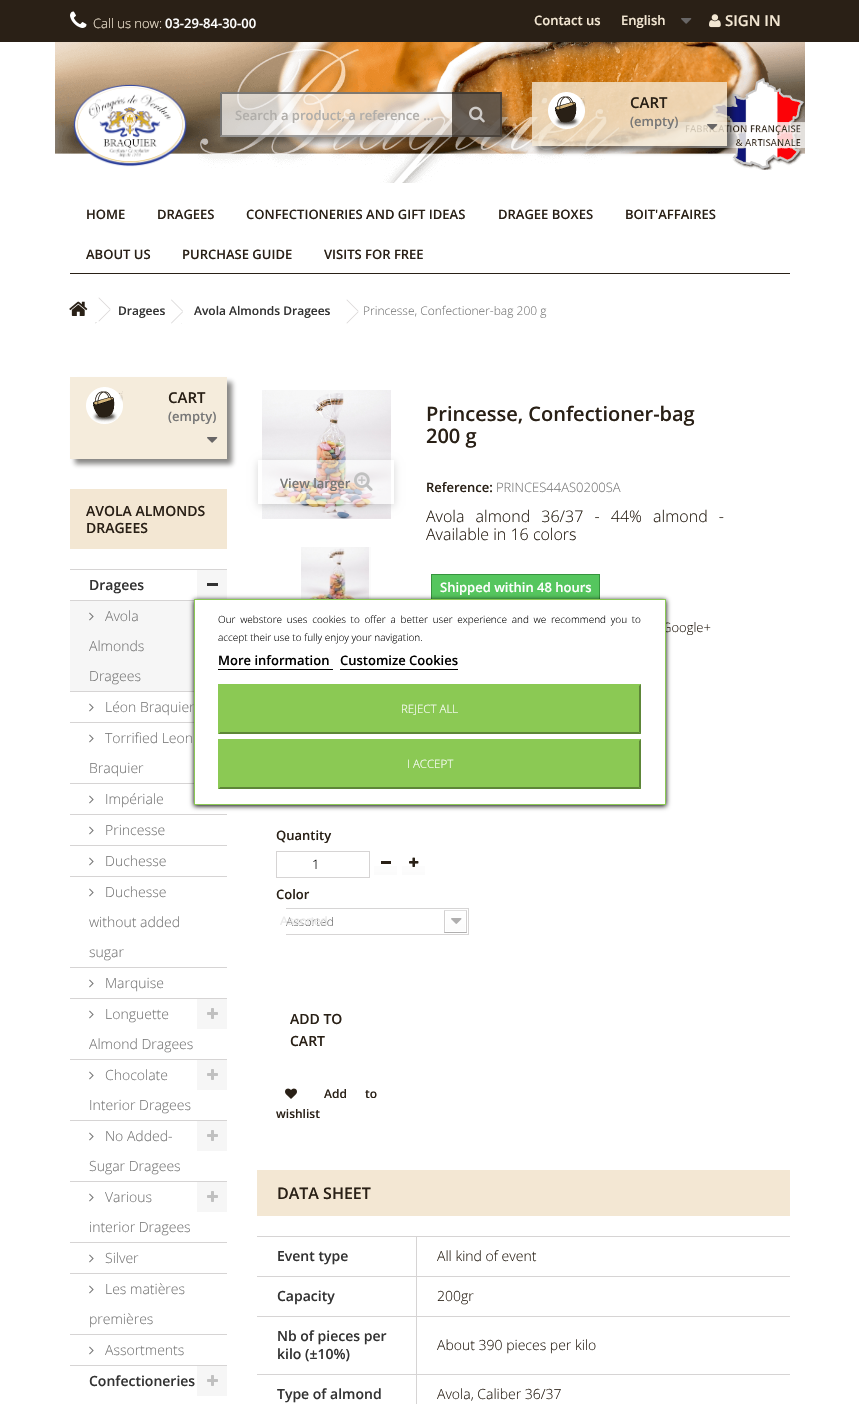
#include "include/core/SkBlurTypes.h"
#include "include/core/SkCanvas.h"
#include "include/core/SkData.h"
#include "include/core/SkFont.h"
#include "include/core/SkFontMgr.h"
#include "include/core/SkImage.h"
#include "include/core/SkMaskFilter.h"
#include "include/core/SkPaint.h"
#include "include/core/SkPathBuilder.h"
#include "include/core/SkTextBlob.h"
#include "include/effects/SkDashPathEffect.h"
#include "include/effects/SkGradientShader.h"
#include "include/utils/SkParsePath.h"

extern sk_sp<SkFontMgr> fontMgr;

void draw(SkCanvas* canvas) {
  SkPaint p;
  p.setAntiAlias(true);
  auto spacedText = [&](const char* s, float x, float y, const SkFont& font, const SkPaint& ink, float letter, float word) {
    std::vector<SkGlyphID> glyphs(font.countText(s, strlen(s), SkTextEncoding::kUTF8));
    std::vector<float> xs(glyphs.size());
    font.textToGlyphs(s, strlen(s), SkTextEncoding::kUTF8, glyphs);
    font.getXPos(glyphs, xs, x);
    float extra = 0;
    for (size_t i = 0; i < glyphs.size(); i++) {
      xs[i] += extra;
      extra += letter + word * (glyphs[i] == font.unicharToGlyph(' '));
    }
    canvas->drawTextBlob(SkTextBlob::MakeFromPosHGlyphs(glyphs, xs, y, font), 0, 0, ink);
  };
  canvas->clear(SK_ColorWHITE);
  p.setColor(SkColorSetRGB(42, 32, 22));
  canvas->drawRect(SkRect::MakeLTRB(0, 0, 859, 42), p);
  canvas->drawImageRect(SkImages::DeferredFromEncodedData(SkData::MakeFromFileName("images/1.png")), SkRect::MakeLTRB(70, 11, 87, 28), SkSamplingOptions());
  canvas->drawImageRect(SkImages::DeferredFromEncodedData(SkData::MakeFromFileName("images/2.png")), SkRect::MakeLTRB(681, 18, 692, 24), SkSamplingOptions());
  canvas->drawImageRect(SkImages::DeferredFromEncodedData(SkData::MakeFromFileName("images/3.png")), SkRect::MakeLTRB(709, 14, 721, 28), SkSamplingOptions());
  canvas->drawImageRect(SkImages::DeferredFromEncodedData(SkData::MakeFromFileName("images/4.png")), SkRect::MakeLTRB(55, 42, 805, 183), SkSamplingOptions());
  canvas->drawImageRect(SkImages::DeferredFromEncodedData(SkData::MakeFromFileName("images/5.png")), SkRect::MakeLTRB(73, 84, 187, 167), SkSamplingOptions());
  canvas->save();
  canvas->clipPath(SkPathBuilder(SkPathFillType::kEvenOdd).moveTo(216, 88).lineTo(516, 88).lineTo(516, 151).lineTo(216, 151).close().moveTo(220, 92).lineTo(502, 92).lineTo(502, 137).lineTo(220, 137).close().detach(), true);
  p.setColor(SkColorSetARGB(89, 16, 13, 9));
  p.setMaskFilter(SkMaskFilter::MakeBlur(kNormal_SkBlurStyle, 2.5f));
  canvas->drawRect(SkRect::MakeLTRB(225, 97, 507, 142), p);
  p.setMaskFilter(nullptr);
  canvas->restore();
  p.setColor(SkColorSetARGB(179, 251, 251, 251));
  canvas->drawRect(SkRect::MakeLTRB(220, 92, 502, 137), p);
  p.setColor(SkColorSetARGB(179, 79, 79, 79));
  canvas->drawPath(SkPathBuilder().moveTo(220, 92).lineTo(502, 92).lineTo(500, 94).lineTo(222, 94).close().detach(), p);
  p.setColor(SkColorSetARGB(179, 118, 118, 118));
  canvas->drawPath(SkPathBuilder().moveTo(502, 92).lineTo(502, 137).lineTo(500, 135).lineTo(500, 94).close().detach(), p);
  canvas->drawPath(SkPathBuilder().moveTo(502, 137).lineTo(220, 137).lineTo(222, 135).lineTo(500, 135).close().detach(), p);
  p.setColor(SkColorSetARGB(179, 79, 79, 79));
  canvas->drawPath(SkPathBuilder().moveTo(220, 137).lineTo(220, 92).lineTo(222, 94).lineTo(222, 135).close().detach(), p);
  p.setColor(SkColorSetARGB(179, 41, 32, 22));
  canvas->drawRect(SkRect::MakeLTRB(452, 92, 502, 137), p);
  canvas->drawImageRect(SkImages::DeferredFromEncodedData(SkData::MakeFromFileName("images/6.png")), SkRect::MakeLTRB(469, 106, 485, 123), SkSamplingOptions());
  canvas->save();
  canvas->clipPath(SkPathBuilder(SkPathFillType::kEvenOdd).moveTo(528, 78).lineTo(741, 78).lineTo(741, 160).lineTo(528, 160).close().moveTo(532, 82).lineTo(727, 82).lineTo(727, 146).lineTo(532, 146).close().detach(), true);
  p.setColor(SkColorSetARGB(128, 16, 13, 9));
  p.setMaskFilter(SkMaskFilter::MakeBlur(kNormal_SkBlurStyle, 2.5f));
  canvas->drawRect(SkRect::MakeLTRB(537, 87, 732, 151), p);
  p.setMaskFilter(nullptr);
  canvas->restore();
  p.setColor(SkColorSetARGB(204, 243, 231, 211));
  canvas->drawRect(SkRect::MakeLTRB(532, 82, 727, 146), p);
  canvas->drawImageRect(SkImages::DeferredFromEncodedData(SkData::MakeFromFileName("images/7.png")), SkRect::MakeLTRB(548, 92, 585, 129), SkSamplingOptions());
  canvas->drawImageRect(SkImages::DeferredFromEncodedData(SkData::MakeFromFileName("images/8.png")), SkRect::MakeLTRB(707, 124, 718, 130), SkSamplingOptions());
  p.setColor(SkColorSetRGB(41, 32, 22));
  canvas->drawRect(SkRect::MakeLTRB(70, 273, 790, 274), p);
  p.setColor(SkColorSetRGB(214, 212, 212));
  canvas->drawPath(SkPathBuilder().moveTo(106, 311.5f).lineTo(107, 312).lineTo(95.5f, 323.5f).lineTo(95, 323).close().detach(), p);
  p.setColor(SK_ColorWHITE);
  canvas->drawPath(SkPathBuilder().moveTo(63, 297).lineTo(98, 297).lineTo(98, 322).lineTo(63, 322).cubicTo(61.5f, 322, 60, 320.5f, 60, 319).lineTo(60, 300).cubicTo(60, 298.5f, 61.5f, 297, 63, 297).close().detach(), p);
  canvas->drawPath(SkPathBuilder().moveTo(100, 298).lineTo(110, 308).cubicTo(110.5f, 309, 110.5f, 310, 110, 311).lineTo(100, 321).cubicTo(99, 321.5f, 98, 321.5f, 97, 321).lineTo(87, 311).cubicTo(86.5f, 310, 86.5f, 309, 87, 308).lineTo(97, 298).cubicTo(98, 297.5f, 99, 297.5f, 100, 298).close().detach(), p);
  canvas->drawImageRect(SkImages::DeferredFromEncodedData(SkData::MakeFromFileName("images/9.png")), SkRect::MakeLTRB(69, 301, 88, 316), SkSamplingOptions());
  p.setColor(SkColorSetRGB(214, 212, 212));
  canvas->drawPath(SkPathBuilder().moveTo(99, 297.5f).lineTo(110.5f, 309).lineTo(110, 309.5f).lineTo(98.5f, 298).close().detach(), p);
  canvas->drawPath(SkPathBuilder().moveTo(110, 309.5f).lineTo(110.5f, 310).lineTo(99, 321.5f).lineTo(98.5f, 321).close().detach(), p);
  canvas->drawPath(SkPathBuilder().moveTo(192.5f, 311.5f).lineTo(193, 312).lineTo(181.5f, 323.5f).lineTo(181, 323).close().detach(), p);
  p.setColor(SK_ColorWHITE);
  canvas->drawRect(SkRect::MakeLTRB(181, 311, 193, 323), p);
  p.setColor(SkColorSetRGB(214, 212, 212));
  canvas->drawPath(SkPathBuilder().moveTo(171.5f, 299.5f).lineTo(183, 311).lineTo(182.5f, 311.5f).lineTo(171, 300).close().detach(), p);
  canvas->drawPath(SkPathBuilder().moveTo(182.5f, 311.5f).lineTo(183, 312).lineTo(171.5f, 323.5f).lineTo(171, 323).close().detach(), p);
  canvas->drawPath(SkPathBuilder().moveTo(347, 299.5f).lineTo(358.5f, 311).lineTo(358, 311.5f).lineTo(346.5f, 300).close().detach(), p);
  canvas->drawPath(SkPathBuilder().moveTo(358, 311.5f).lineTo(358.5f, 312).lineTo(347, 323.5f).lineTo(346.5f, 323).close().detach(), p);
  p.setColor(SkColorSetARGB(128, 16, 13, 9));
  p.setMaskFilter(SkMaskFilter::MakeBlur(kNormal_SkBlurStyle, 2.5f));
  canvas->drawRect(SkRect::MakeLTRB(75, 382, 232, 464), p);
  p.setMaskFilter(nullptr);
  p.setColor(SkColorSetRGB(245, 236, 220));
  canvas->drawRect(SkRect::MakeLTRB(70, 377, 227, 459), p);
  canvas->drawImageRect(SkImages::DeferredFromEncodedData(SkData::MakeFromFileName("images/10.png")), SkRect::MakeLTRB(86, 387, 123, 424), SkSamplingOptions());
  canvas->drawImageRect(SkImages::DeferredFromEncodedData(SkData::MakeFromFileName("images/11.png")), SkRect::MakeLTRB(207, 437, 218, 443), SkSamplingOptions());
  p.setColor(SkColorSetRGB(243, 231, 211));
  canvas->drawRect(SkRect::MakeLTRB(70, 489, 227, 549), p);
  p.setColor(SkColorSetRGB(214, 212, 212));
  canvas->drawRect(SkRect::MakeLTRB(70, 569, 227, 570), p);
  canvas->drawRect(SkRect::MakeLTRB(70, 600, 194, 601), p);
  p.setColor(SkColorSetRGB(246, 246, 246));
  canvas->drawRect(SkRect::MakeLTRB(197, 570, 227, 599), p);
  p.setColor(SkColorSetRGB(51, 51, 51));
  canvas->drawRect(SkRect::MakeLTRB(207, 583, 218, 586), p);
  p.setColor(SkColorSetRGB(246, 246, 246));
  canvas->drawRect(SkRect::MakeLTRB(70, 601, 194, 691), p);
  p.setColor(SkColorSetRGB(214, 212, 212));
  canvas->drawRect(SkRect::MakeLTRB(70, 691, 194, 692), p);
  canvas->drawImageRect(SkImages::DeferredFromEncodedData(SkData::MakeFromFileName("images/12.png")), SkRect::MakeLTRB(89, 612, 94, 621), SkSamplingOptions());
  canvas->drawRect(SkRect::MakeLTRB(70, 722, 194, 723), p);
  canvas->drawImageRect(SkImages::DeferredFromEncodedData(SkData::MakeFromFileName("images/13.png")), SkRect::MakeLTRB(89, 703, 94, 712), SkSamplingOptions());
  canvas->drawRect(SkRect::MakeLTRB(70, 783, 194, 784), p);
  canvas->drawImageRect(SkImages::DeferredFromEncodedData(SkData::MakeFromFileName("images/13.png")), SkRect::MakeLTRB(89, 734, 94, 743), SkSamplingOptions());
  canvas->drawRect(SkRect::MakeLTRB(70, 814, 227, 815), p);
  canvas->drawImageRect(SkImages::DeferredFromEncodedData(SkData::MakeFromFileName("images/13.png")), SkRect::MakeLTRB(89, 795, 94, 804), SkSamplingOptions());
  canvas->drawRect(SkRect::MakeLTRB(70, 845, 227, 846), p);
  canvas->drawImageRect(SkImages::DeferredFromEncodedData(SkData::MakeFromFileName("images/13.png")), SkRect::MakeLTRB(89, 826, 94, 835), SkSamplingOptions());
  canvas->drawRect(SkRect::MakeLTRB(70, 876, 227, 877), p);
  canvas->drawImageRect(SkImages::DeferredFromEncodedData(SkData::MakeFromFileName("images/13.png")), SkRect::MakeLTRB(89, 857, 94, 866), SkSamplingOptions());
  canvas->drawRect(SkRect::MakeLTRB(70, 967, 227, 968), p);
  canvas->drawImageRect(SkImages::DeferredFromEncodedData(SkData::MakeFromFileName("images/13.png")), SkRect::MakeLTRB(89, 888, 94, 897), SkSamplingOptions());
  canvas->drawRect(SkRect::MakeLTRB(70, 998, 227, 999), p);
  canvas->drawImageRect(SkImages::DeferredFromEncodedData(SkData::MakeFromFileName("images/13.png")), SkRect::MakeLTRB(89, 979, 94, 988), SkSamplingOptions());
  canvas->drawRect(SkRect::MakeLTRB(70, 1059, 227, 1060), p);
  canvas->drawImageRect(SkImages::DeferredFromEncodedData(SkData::MakeFromFileName("images/13.png")), SkRect::MakeLTRB(89, 1010, 94, 1019), SkSamplingOptions());
  p.setColor(SkColorSetRGB(246, 246, 246));
  canvas->drawRect(SkRect::MakeLTRB(197, 999, 227, 1029), p);
  canvas->drawImageRect(SkImages::DeferredFromEncodedData(SkData::MakeFromFileName("images/14.png")), SkRect::MakeLTRB(207, 1008, 218, 1019), SkSamplingOptions());
  p.setColor(SkColorSetRGB(214, 212, 212));
  canvas->drawRect(SkRect::MakeLTRB(70, 1120, 227, 1121), p);
  canvas->drawImageRect(SkImages::DeferredFromEncodedData(SkData::MakeFromFileName("images/13.png")), SkRect::MakeLTRB(89, 1071, 94, 1080), SkSamplingOptions());
  p.setColor(SkColorSetRGB(246, 246, 246));
  canvas->drawRect(SkRect::MakeLTRB(197, 1060, 227, 1090), p);
  canvas->drawImageRect(SkImages::DeferredFromEncodedData(SkData::MakeFromFileName("images/14.png")), SkRect::MakeLTRB(207, 1069, 218, 1080), SkSamplingOptions());
  p.setColor(SkColorSetRGB(214, 212, 212));
  canvas->drawRect(SkRect::MakeLTRB(70, 1181, 227, 1182), p);
  canvas->drawImageRect(SkImages::DeferredFromEncodedData(SkData::MakeFromFileName("images/13.png")), SkRect::MakeLTRB(89, 1132, 94, 1141), SkSamplingOptions());
  p.setColor(SkColorSetRGB(246, 246, 246));
  canvas->drawRect(SkRect::MakeLTRB(197, 1121, 227, 1151), p);
  canvas->drawImageRect(SkImages::DeferredFromEncodedData(SkData::MakeFromFileName("images/14.png")), SkRect::MakeLTRB(207, 1130, 218, 1141), SkSamplingOptions());
  p.setColor(SkColorSetRGB(214, 212, 212));
  canvas->drawRect(SkRect::MakeLTRB(70, 1242, 227, 1243), p);
  canvas->drawImageRect(SkImages::DeferredFromEncodedData(SkData::MakeFromFileName("images/13.png")), SkRect::MakeLTRB(89, 1193, 94, 1202), SkSamplingOptions());
  p.setColor(SkColorSetRGB(246, 246, 246));
  canvas->drawRect(SkRect::MakeLTRB(197, 1182, 227, 1212), p);
  canvas->drawImageRect(SkImages::DeferredFromEncodedData(SkData::MakeFromFileName("images/14.png")), SkRect::MakeLTRB(207, 1191, 218, 1202), SkSamplingOptions());
  p.setColor(SkColorSetRGB(214, 212, 212));
  canvas->drawRect(SkRect::MakeLTRB(70, 1273, 227, 1274), p);
  canvas->drawImageRect(SkImages::DeferredFromEncodedData(SkData::MakeFromFileName("images/13.png")), SkRect::MakeLTRB(89, 1254, 94, 1263), SkSamplingOptions());
  canvas->drawRect(SkRect::MakeLTRB(70, 1334, 227, 1335), p);
  canvas->drawImageRect(SkImages::DeferredFromEncodedData(SkData::MakeFromFileName("images/13.png")), SkRect::MakeLTRB(89, 1285, 94, 1294), SkSamplingOptions());
  canvas->drawRect(SkRect::MakeLTRB(70, 1365, 227, 1366), p);
  canvas->drawImageRect(SkImages::DeferredFromEncodedData(SkData::MakeFromFileName("images/13.png")), SkRect::MakeLTRB(89, 1346, 94, 1355), SkSamplingOptions());
  p.setColor(SkColorSetRGB(246, 246, 246));
  canvas->drawRect(SkRect::MakeLTRB(197, 1366, 227, 1396), p);
  canvas->drawImageRect(SkImages::DeferredFromEncodedData(SkData::MakeFromFileName("images/14.png")), SkRect::MakeLTRB(207, 1375, 218, 1386), SkSamplingOptions());
  canvas->drawImageRect(SkImages::DeferredFromEncodedData(SkData::MakeFromFileName("images/15.png")), SkRect::MakeLTRB(262, 390, 391, 519), SkSamplingOptions());
  canvas->save();
  canvas->clipPath(SkPathBuilder(SkPathFillType::kEvenOdd).moveTo(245, 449).lineTo(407, 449).lineTo(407, 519).lineTo(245, 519).close().moveTo(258, 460).lineTo(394, 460).lineTo(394, 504).lineTo(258, 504).close().detach(), true);
  p.setColor(SkColorSetARGB(41, 0, 0, 0));
  p.setMaskFilter(SkMaskFilter::MakeBlur(kNormal_SkBlurStyle, 4));
  canvas->drawRect(SkRect::MakeLTRB(258, 462, 394, 506), p);
  p.setMaskFilter(nullptr);
  canvas->restore();
  p.setColor(SkColorSetARGB(128, 255, 255, 255));
  canvas->drawRect(SkRect::MakeLTRB(262, 460, 391, 504), p);
  canvas->drawImageRect(SkImages::DeferredFromEncodedData(SkData::MakeFromFileName("images/16.png")), SkRect::MakeLTRB(354, 472, 373, 491), SkSamplingOptions());
  p.setColor(SkColorSetRGB(251, 251, 251));
  canvas->drawRect(SkRect::MakeLTRB(369, 547, 371, 599), p);
  canvas->drawImageRect(SkImages::DeferredFromEncodedData(SkData::MakeFromFileName("images/17.png")), SkRect::MakeLTRB(301, 547, 369, 599), SkSamplingOptions());
  p.setColor(SkColorSetRGB(85, 198, 94));
  canvas->drawRect(SkRect::MakeLTRB(432, 575, 599, 599), p);
  p.setStyle(SkPaint::kStroke_Style);
  p.setStrokeWidth(1);
  p.setColor(SkColorSetRGB(54, 148, 62));
  canvas->drawRect(SkRect::MakeLTRB(431.5f, 574.5f, 599.5f, 600.5f), p);
  p.setColor(SkColorSetRGB(214, 212, 212));
  canvas->drawRect(SkRect::MakeLTRB(276.5f, 851.5f, 369.5f, 877.5f), p);
  p.setStyle(SkPaint::kFill_Style);
  {
    const SkColor colors[] = {SK_ColorWHITE, SkColorSetRGB(251, 251, 251)};
    const float stops[] = {0, 1};
    const SkPoint ends[] = {{386, 852}, {386, 875}};
    p.setShader(SkGradientShader::MakeLinear(ends, colors, stops, 2, SkTileMode::kClamp));
    p.setAlpha(255);
  }
  canvas->drawRect(SkRect::MakeLTRB(374, 866, 397, 875), p);
  p.setShader(nullptr);
  p.setColor(SkColorSetRGB(41, 32, 22));
  canvas->drawRect(SkRect::MakeLTRB(381, 861, 391, 864), p);
  {
    const SkColor colors[] = {SK_ColorWHITE, SkColorSetRGB(251, 251, 251)};
    const float stops[] = {0, 1};
    const SkPoint ends[] = {{414, 852}, {414, 875}};
    p.setShader(SkGradientShader::MakeLinear(ends, colors, stops, 2, SkTileMode::kClamp));
    p.setAlpha(255);
  }
  canvas->drawRect(SkRect::MakeLTRB(402, 866, 425, 875), p);
  canvas->drawImageRect(SkImages::DeferredFromEncodedData(SkData::MakeFromFileName("images/18.png")), SkRect::MakeLTRB(409, 857, 419, 867), SkSamplingOptions());
  canvas->drawImageRect(SkImages::DeferredFromEncodedData(SkData::MakeFromFileName("images/19.png")), SkRect::MakeLTRB(286, 908, 469, 935), SkSamplingOptions());
  canvas->drawImageRect(SkImages::DeferredFromEncodedData(SkData::MakeFromFileName("images/20.png")), SkRect::MakeLTRB(285, 1088, 297, 1099), SkSamplingOptions());
  p.setShader(nullptr);
  p.setColor(SkColorSetRGB(243, 231, 211));
  canvas->drawRect(SkRect::MakeLTRB(257, 1170, 790, 1216), p);
  p.setColor(SkColorSetRGB(214, 212, 212));
  canvas->drawRect(SkRect::MakeLTRB(257, 1236, 790, 1237), p);
  canvas->drawRect(SkRect::MakeLTRB(257, 1276, 790, 1277), p);
  canvas->drawRect(SkRect::MakeLTRB(257, 1316, 790, 1317), p);
  canvas->drawRect(SkRect::MakeLTRB(257, 1374, 790, 1375), p);
  canvas->drawRect(SkRect::MakeLTRB(416, 1236, 417, 1404), p);
  p.setColor(SK_ColorBLACK);
  p.setMaskFilter(SkMaskFilter::MakeBlur(kNormal_SkBlurStyle, 2.5f));
  canvas->drawRect(SkRect::MakeLTRB(194, 600, 666, 806), p);
  p.setMaskFilter(nullptr);
  SkFont font1(fontMgr->matchFamilyStyle("Open Sans", SkFontStyle(300, SkFontStyle::kNormal_Width, SkFontStyle::kUpright_Slant)), 13);
  font1.setSubpixel(true);
  p.setColor(SkColorSetRGB(243, 231, 211));
  canvas->drawString("Call us now:", 93, 28, font1, p);
  SkFont font2(fontMgr->matchFamilyStyle("Open Sans", SkFontStyle(600, SkFontStyle::kNormal_Width, SkFontStyle::kUpright_Slant)), 13);
  font2.setSubpixel(true);
  p.setColor(SK_ColorWHITE);
  canvas->drawString("03-29-84-30-00", 165, 28, font2, p);
  p.setColor(SkColorSetRGB(243, 231, 211));
  canvas->drawString("Contact us", 534, 25, font2, p);
  canvas->drawString("English", 621, 25, font2, p);
  SkFont font3(fontMgr->matchFamilyStyle("Open Sans", SkFontStyle(600, SkFontStyle::kNormal_Width, SkFontStyle::kUpright_Slant)), 15);
  font3.setSubpixel(true);
  canvas->drawString("SIGN IN", 725, 26, font3, p);
  p.setColor(SkColorSetRGB(177, 174, 170));
  canvas->drawString("Search a product, a reference ...", 235, 120, font2, p);
  p.setColor(SkColorSetRGB(41, 32, 22));
  canvas->drawString("CART", 630, 108, font3, p);
  p.setColor(SkColorSetRGB(119, 119, 119));
  canvas->drawString("(empty)", 630, 126, font2, p);
  p.setColor(SkColorSetRGB(41, 32, 22));
  canvas->drawString("HOME", 86, 219, font2, p);
  canvas->drawString("DRAGEES", 157, 219, font2, p);
  canvas->drawString("CONFECTIONERIES AND GIFT IDEAS", 246, 219, font2, p);
  canvas->drawString("DRAGEE BOXES", 498, 219, font2, p);
  canvas->drawString("BOIT'AFFAIRES", 625, 219, font2, p);
  canvas->drawString("ABOUT US", 86, 259, font2, p);
  canvas->drawString("PURCHASE GUIDE", 182, 259, font2, p);
  canvas->drawString("VISITS FOR FREE", 324, 259, font2, p);
  SkFont font4(fontMgr->matchFamilyStyle("Open Sans", SkFontStyle(600, SkFontStyle::kNormal_Width, SkFontStyle::kUpright_Slant)), 12);
  font4.setSubpixel(true);
  p.setColor(SkColorSetRGB(51, 51, 51));
  canvas->drawString("Dragees", 118, 315, font4, p);
  canvas->drawString("Avola Almonds Dragees", 194, 315, font4, p);
  SkFont font5(fontMgr->matchFamilyStyle("Open Sans", SkFontStyle(300, SkFontStyle::kNormal_Width, SkFontStyle::kUpright_Slant)), 12);
  font5.setSubpixel(true);
  p.setColor(SkColorSetRGB(119, 119, 119));
  canvas->drawString("Princesse, Confectioner-bag 200 g", 363, 315, font5, p);
  p.setColor(SkColorSetRGB(41, 32, 22));
  canvas->drawString("CART", 168, 403, font3, p);
  p.setColor(SkColorSetRGB(119, 119, 119));
  canvas->drawString("(empty)", 168, 421, font2, p);
  SkFont font6(fontMgr->matchFamilyStyle("Open Sans", SkFontStyle(600, SkFontStyle::kNormal_Width, SkFontStyle::kUpright_Slant)), 14);
  font6.setSubpixel(true);
  p.setColor(SkColorSetRGB(41, 32, 22));
  canvas->drawString("AVOLA ALMONDS", 86, 516, font6, p);
  canvas->drawString("DRAGEES", 86, 533, font6, p);
  p.setColor(SkColorSetRGB(51, 51, 51));
  canvas->drawString("Dragees", 89, 590, font6, p);
  SkFont font7(fontMgr->matchFamilyStyle("Open Sans", SkFontStyle(300, SkFontStyle::kNormal_Width, SkFontStyle::kUpright_Slant)), 14);
  font7.setSubpixel(true);
  p.setColor(SkColorSetRGB(119, 119, 119));
  canvas->drawString("Avola", 105, 621, font7, p);
  canvas->drawString("Almonds", 89, 651, font7, p);
  canvas->drawString("Dragees", 89, 681, font7, p);
  canvas->drawString("Léon Braquier", 105, 712, font7, p);
  canvas->drawString("Torrified Leon", 105, 743, font7, p);
  canvas->drawString("Braquier", 89, 773, font7, p);
  canvas->drawString("Impériale", 105, 804, font7, p);
  canvas->drawString("Princesse", 105, 835, font7, p);
  canvas->drawString("Duchesse", 105, 866, font7, p);
  canvas->drawString("Duchesse", 105, 897, font7, p);
  canvas->drawString("without added", 89, 927, font7, p);
  canvas->drawString("sugar", 89, 957, font7, p);
  canvas->drawString("Marquise", 105, 988, font7, p);
  canvas->drawString("Longuette", 105, 1019, font7, p);
  canvas->drawString("Almond Dragees", 89, 1049, font7, p);
  canvas->drawString("Chocolate", 105, 1080, font7, p);
  canvas->drawString("Interior Dragees", 89, 1110, font7, p);
  canvas->drawString("No Added-", 105, 1141, font7, p);
  canvas->drawString("Sugar Dragees", 89, 1171, font7, p);
  canvas->drawString("Various", 105, 1202, font7, p);
  canvas->drawString("interior Dragees", 89, 1232, font7, p);
  canvas->drawString("Silver", 105, 1263, font7, p);
  canvas->drawString("Les matières", 105, 1294, font7, p);
  canvas->drawString("premières", 89, 1324, font7, p);
  canvas->drawString("Assortments", 105, 1355, font7, p);
  p.setColor(SkColorSetRGB(51, 51, 51));
  canvas->drawString("Confectioneries", 89, 1386, font6, p);
  p.setColor(SkColorSetRGB(119, 119, 119));
  canvas->drawString("View larger", 280, 488, font2, p);
  SkFont font8(fontMgr->matchFamilyStyle("Open Sans", SkFontStyle(600, SkFontStyle::kNormal_Width, SkFontStyle::kUpright_Slant)), 20);
  font8.setSubpixel(true);
  p.setColor(SkColorSetRGB(41, 32, 22));
  canvas->drawString("Princesse, Confectioner-bag", 426, 421, font8, p);
  canvas->drawString("200 g", 426, 443, font8, p);
  canvas->drawString("Reference:", 426, 492, font2, p);
  p.setColor(SkColorSetRGB(119, 119, 119));
  canvas->drawString("PRINCES44AS0200SA", 496, 492, font1, p);
  SkFont font9(fontMgr->matchFamilyStyle("Open Sans", SkFontStyle(300, SkFontStyle::kNormal_Width, SkFontStyle::kUpright_Slant)), 16);
  font9.setSubpixel(true);
  p.setColor(SkColorSetRGB(41, 32, 22));
  spacedText("Avola almond 36/37 - 44% almond -", 426, 522, font9, p, 0, 7);
  canvas->drawString("Available in 16 colors", 426, 540, font9, p);
  p.setColor(SK_ColorWHITE);
  canvas->drawString("Shipped within 48 hours", 440, 592, font2, p);
  p.setColor(SkColorSetRGB(41, 32, 22));
  canvas->drawString("Google+", 662, 632, font1, p);
  canvas->drawString("Quantity", 276, 840, font2, p);
  p.setColor(SK_ColorBLACK);
  canvas->drawString("1", 312, 869, font1, p);
  p.setColor(SkColorSetRGB(41, 32, 22));
  canvas->drawString("Color", 276, 899, font2, p);
  p.setColor(SkColorSetRGB(102, 102, 102));
  canvas->drawString("Assorted", 286, 926, font5, p);
  SkFont font10(fontMgr->matchFamilyStyle("Liberation Sans", SkFontStyle::Normal()), 12);
  font10.setSubpixel(true);
  p.setColor(SkColorSetRGB(233, 233, 233));
  canvas->drawString("Assorted", 280, 925, font10, p);
  p.setColor(SkColorSetRGB(41, 32, 22));
  canvas->drawString("ADD TO", 290, 1024, font6, p);
  canvas->drawString("CART", 290, 1046, font6, p);
  spacedText("Add to", 324, 1098, font4, p, 0, 15);
  canvas->drawString("wishlist", 276, 1118, font4, p);
  SkFont font11(fontMgr->matchFamilyStyle("Open Sans", SkFontStyle(600, SkFontStyle::kNormal_Width, SkFontStyle::kUpright_Slant)), 16);
  font11.setSubpixel(true);
  canvas->drawString("DATA SHEET", 277, 1199, font11, p);
  p.setColor(SkColorSetRGB(51, 51, 51));
  canvas->drawString("Event type", 277, 1261, font6, p);
  p.setColor(SkColorSetRGB(41, 32, 22));
  canvas->drawString("All kind of event", 437, 1261, font7, p);
  p.setColor(SkColorSetRGB(51, 51, 51));
  canvas->drawString("Capacity", 277, 1301, font6, p);
  p.setColor(SkColorSetRGB(41, 32, 22));
  canvas->drawString("200gr", 437, 1301, font7, p);
  p.setColor(SkColorSetRGB(51, 51, 51));
  canvas->drawString("Nb of pieces per", 277, 1341, font6, p);
  canvas->drawString("kilo (±10%)", 277, 1359, font6, p);
  p.setColor(SkColorSetRGB(41, 32, 22));
  canvas->drawString("About 390 pieces per kilo", 437, 1350, font7, p);
  p.setColor(SkColorSetRGB(51, 51, 51));
  canvas->drawString("Type of almond", 277, 1399, font6, p);
  p.setColor(SkColorSetRGB(41, 32, 22));
  canvas->drawString("Avola, Caliber 36/37", 437, 1399, font7, p);
  p.setColor(SK_ColorWHITE);
  canvas->drawRect(SkRect::MakeLTRB(194.5f, 599.5f, 665.5f, 804.5f), p);
  p.setStyle(SkPaint::kStroke_Style);
  p.setColor(SkColorSetRGB(139, 201, 84));
  canvas->drawRect(SkRect::MakeLTRB(194.5f, 599.5f, 665.5f, 804.5f), p);
  SkFont font12(fontMgr->matchFamilyStyle("Open Sans", SkFontStyle(300, SkFontStyle::kNormal_Width, SkFontStyle::kUpright_Slant)), 10);
  font12.setSubpixel(true);
  p.setStyle(SkPaint::kFill_Style);
  p.setColor(SK_ColorBLACK);
  spacedText("Our webstore uses cookies to offer a better user experience and we recommend you to", 218, 623, font12, p, 0, 2.1f);
  canvas->drawString("accept their use to fully enjoy your navigation.", 218, 641, font12, p);
  canvas->drawString("More information", 218, 665, font2, p);
  canvas->drawRect(SkRect::MakeLTRB(218, 669, 333, 670), p);
  canvas->drawString("Customize Cookies", 340, 665, font2, p);
  canvas->drawRect(SkRect::MakeLTRB(340, 669, 458, 670), p);
  p.setColor(SkColorSetRGB(139, 201, 84));
  canvas->drawRect(SkRect::MakeLTRB(218, 684, 641, 734), p);
  p.setColor(SkColorSetRGB(93, 134, 56));
  canvas->drawPath(SkPathBuilder().moveTo(641, 684).lineTo(641, 734).lineTo(639, 732).lineTo(639, 686).close().detach(), p);
  canvas->drawPath(SkPathBuilder().moveTo(641, 734).lineTo(218, 734).lineTo(220, 732).lineTo(639, 732).close().detach(), p);
  p.setColor(SkColorSetRGB(139, 201, 84));
  canvas->drawPath(SkPathBuilder().moveTo(218, 734).lineTo(218, 684).lineTo(220, 686).lineTo(220, 732).close().detach(), p);
  SkFont font13(fontMgr->matchFamilyStyle("Open Sans", SkFontStyle(300, SkFontStyle::kNormal_Width, SkFontStyle::kUpright_Slant)), 11.5f);
  font13.setSubpixel(true);
  p.setColor(SK_ColorWHITE);
  canvas->drawString("REJECT ALL", 401, 713, font13, p);
  p.setColor(SkColorSetRGB(139, 201, 84));
  canvas->drawRect(SkRect::MakeLTRB(218, 739, 641, 789), p);
  p.setColor(SkColorSetRGB(93, 134, 56));
  canvas->drawPath(SkPathBuilder().moveTo(641, 739).lineTo(641, 789).lineTo(639, 787).lineTo(639, 741).close().detach(), p);
  canvas->drawPath(SkPathBuilder().moveTo(641, 789).lineTo(218, 789).lineTo(220, 787).lineTo(639, 787).close().detach(), p);
  p.setColor(SkColorSetRGB(139, 201, 84));
  canvas->drawPath(SkPathBuilder().moveTo(218, 789).lineTo(218, 739).lineTo(220, 741).lineTo(220, 787).close().detach(), p);
  p.setColor(SK_ColorWHITE);
  canvas->drawString("I ACCEPT", 407, 768, font13, p);
}
